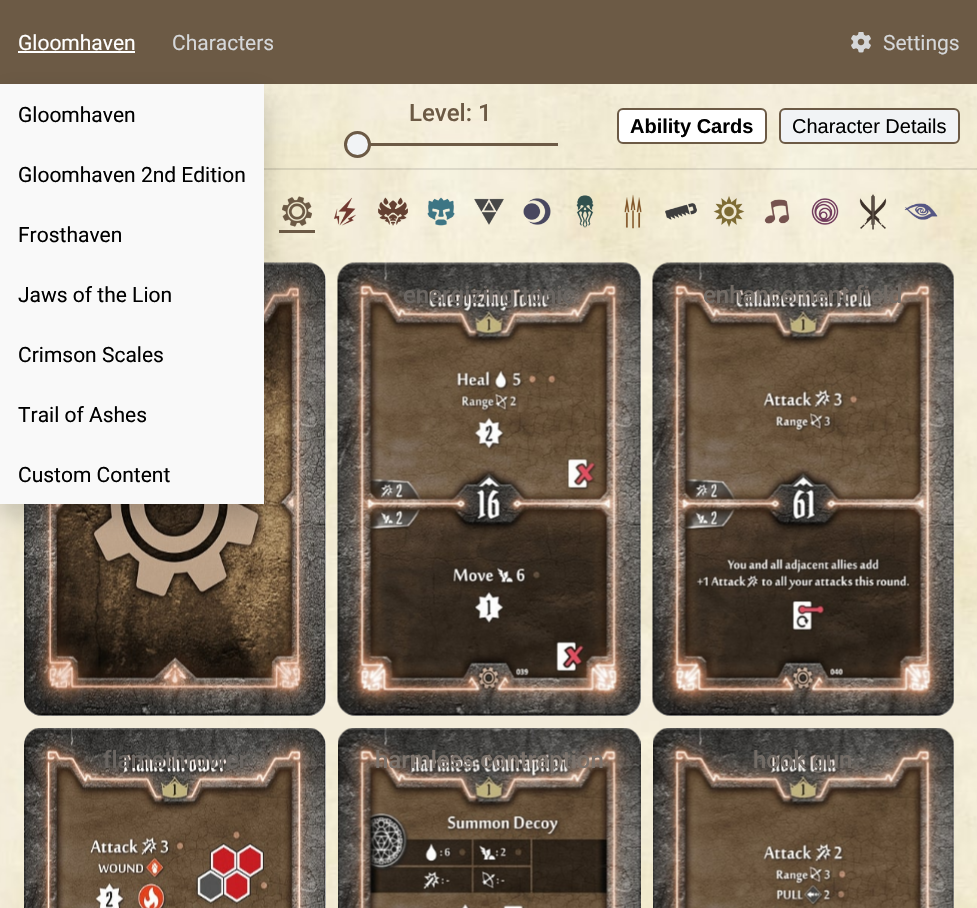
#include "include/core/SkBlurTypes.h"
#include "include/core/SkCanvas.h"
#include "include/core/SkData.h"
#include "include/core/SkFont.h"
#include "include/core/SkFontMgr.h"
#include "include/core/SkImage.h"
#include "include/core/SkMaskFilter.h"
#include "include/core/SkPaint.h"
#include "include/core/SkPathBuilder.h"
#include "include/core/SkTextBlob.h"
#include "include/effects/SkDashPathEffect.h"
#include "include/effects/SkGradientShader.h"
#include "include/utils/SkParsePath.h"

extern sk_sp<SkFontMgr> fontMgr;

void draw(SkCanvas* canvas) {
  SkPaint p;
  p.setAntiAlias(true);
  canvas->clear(SK_ColorWHITE);
  canvas->drawImageRect(SkImages::DeferredFromEncodedData(SkData::MakeFromFileName("images/1.png")), SkRect::MakeLTRB(0, 84, 977, 908), SkSamplingOptions());
  p.setColor(SkColorSetRGB(108, 90, 69));
  canvas->drawRect(SkRect::MakeLTRB(0, 0, 977, 84), p);
  p.setColor(SK_ColorWHITE);
  canvas->drawRect(SkRect::MakeLTRB(18, 51, 135, 53), p);
  p.setColor(SkColorSetARGB(26, 0, 0, 0));
  canvas->drawRect(SkRect::MakeLTRB(264, 168, 977, 170), p);
  p.setColor(SkColorSetRGB(108, 90, 69));
  canvas->drawRect(SkRect::MakeLTRB(279, 230, 315, 233), p);
  canvas->drawImageRect(SkImages::DeferredFromEncodedData(SkData::MakeFromFileName("images/3.png")), SkRect::MakeLTRB(282, 196, 312, 227), SkSamplingOptions());
  {
    const SkColor colors[] = {SkColorSetRGB(221, 221, 221), SkColorSetRGB(221, 221, 221), SkColorSetRGB(204, 204, 204), SkColorSetRGB(204, 204, 204), SkColorSetRGB(221, 221, 221), SkColorSetRGB(221, 221, 221), SkColorSetRGB(204, 204, 204), SkColorSetRGB(204, 204, 204), SkColorSetRGB(221, 221, 221), SkColorSetRGB(221, 221, 221), SkColorSetRGB(204, 204, 204), SkColorSetRGB(204, 204, 204), SkColorSetRGB(221, 221, 221), SkColorSetRGB(221, 221, 221), SkColorSetRGB(204, 204, 204), SkColorSetRGB(204, 204, 204), SkColorSetRGB(221, 221, 221), SkColorSetRGB(221, 221, 221), SkColorSetRGB(204, 204, 204), SkColorSetRGB(204, 204, 204), SkColorSetRGB(221, 221, 221), SkColorSetRGB(221, 221, 221), SkColorSetRGB(204, 204, 204), SkColorSetRGB(204, 204, 204), SkColorSetRGB(221, 221, 221), SkColorSetRGB(221, 221, 221), SkColorSetRGB(204, 204, 204), SkColorSetRGB(204, 204, 204), SkColorSetRGB(221, 221, 221), SkColorSetRGB(221, 221, 221), SkColorSetRGB(204, 204, 204), SkColorSetRGB(204, 204, 204), SkColorSetRGB(221, 221, 221), SkColorSetRGB(221, 221, 221), SkColorSetRGB(204, 204, 204), SkColorSetRGB(204, 204, 204), SkColorSetRGB(221, 221, 221), SkColorSetRGB(221, 221, 221), SkColorSetRGB(204, 204, 204), SkColorSetRGB(204, 204, 204), SkColorSetRGB(221, 221, 221), SkColorSetRGB(221, 221, 221), SkColorSetRGB(204, 204, 204), SkColorSetRGB(204, 204, 204), SkColorSetRGB(221, 221, 221), SkColorSetRGB(221, 221, 221), SkColorSetRGB(204, 204, 204), SkColorSetRGB(204, 204, 204), SkColorSetRGB(221, 221, 221), SkColorSetRGB(221, 221, 221), SkColorSetRGB(204, 204, 204), SkColorSetRGB(204, 204, 204), SkColorSetRGB(221, 221, 221), SkColorSetRGB(221, 221, 221), SkColorSetRGB(204, 204, 204), SkColorSetRGB(204, 204, 204), SkColorSetRGB(221, 221, 221), SkColorSetRGB(221, 221, 221), SkColorSetRGB(204, 204, 204), SkColorSetRGB(204, 204, 204), SkColorSetRGB(221, 221, 221), SkColorSetRGB(221, 221, 221), SkColorSetRGB(204, 204, 204), SkColorSetRGB(204, 204, 204), SkColorSetRGB(221, 221, 221), SkColorSetRGB(221, 221, 221), SkColorSetRGB(204, 204, 204), SkColorSetRGB(204, 204, 204), SkColorSetRGB(221, 221, 221), SkColorSetRGB(221, 221, 221), SkColorSetRGB(204, 204, 204), SkColorSetRGB(204, 204, 204), SkColorSetRGB(221, 221, 221), SkColorSetRGB(221, 221, 221), SkColorSetRGB(204, 204, 204), SkColorSetRGB(204, 204, 204), SkColorSetRGB(221, 221, 221), SkColorSetRGB(221, 221, 221), SkColorSetRGB(204, 204, 204), SkColorSetRGB(204, 204, 204), SkColorSetRGB(221, 221, 221), SkColorSetRGB(221, 221, 221), SkColorSetRGB(204, 204, 204), SkColorSetRGB(204, 204, 204), SkColorSetRGB(221, 221, 221), SkColorSetRGB(221, 221, 221), SkColorSetRGB(204, 204, 204), SkColorSetRGB(204, 204, 204), SkColorSetRGB(221, 221, 221), SkColorSetRGB(221, 221, 221), SkColorSetRGB(204, 204, 204), SkColorSetRGB(204, 204, 204), SkColorSetRGB(221, 221, 221), SkColorSetRGB(221, 221, 221), SkColorSetRGB(204, 204, 204), SkColorSetRGB(204, 204, 204), SkColorSetRGB(221, 221, 221), SkColorSetRGB(221, 221, 221), SkColorSetRGB(204, 204, 204), SkColorSetRGB(204, 204, 204), SkColorSetRGB(221, 221, 221), SkColorSetRGB(221, 221, 221), SkColorSetRGB(204, 204, 204), SkColorSetRGB(204, 204, 204), SkColorSetRGB(221, 221, 221), SkColorSetRGB(221, 221, 221), SkColorSetRGB(204, 204, 204), SkColorSetRGB(204, 204, 204), SkColorSetRGB(221, 221, 221), SkColorSetRGB(221, 221, 221), SkColorSetRGB(204, 204, 204), SkColorSetRGB(204, 204, 204), SkColorSetRGB(221, 221, 221), SkColorSetRGB(221, 221, 221), SkColorSetRGB(204, 204, 204), SkColorSetRGB(204, 204, 204), SkColorSetRGB(221, 221, 221), SkColorSetRGB(221, 221, 221), SkColorSetRGB(204, 204, 204), SkColorSetRGB(204, 204, 204), SkColorSetRGB(221, 221, 221), SkColorSetRGB(221, 221, 221), SkColorSetRGB(204, 204, 204), SkColorSetRGB(204, 204, 204), SkColorSetRGB(221, 221, 221), SkColorSetRGB(221, 221, 221), SkColorSetRGB(204, 204, 204), SkColorSetRGB(204, 204, 204), SkColorSetRGB(221, 221, 221), SkColorSetRGB(221, 221, 221), SkColorSetRGB(204, 204, 204), SkColorSetRGB(204, 204, 204), SkColorSetRGB(221, 221, 221), SkColorSetRGB(221, 221, 221), SkColorSetRGB(204, 204, 204), SkColorSetRGB(204, 204, 204)};
    const float stops[] = {0, 0.01f, 0.01f, 0.03f, 0.03f, 0.04f, 0.04f, 0.06f, 0.06f, 0.07f, 0.07f, 0.09f, 0.09f, 0.1f, 0.1f, 0.12f, 0.12f, 0.13f, 0.13f, 0.15f, 0.15f, 0.16f, 0.16f, 0.18f, 0.18f, 0.19f, 0.19f, 0.21f, 0.21f, 0.22f, 0.22f, 0.24f, 0.24f, 0.25f, 0.25f, 0.26f, 0.26f, 0.28f, 0.28f, 0.29f, 0.29f, 0.31f, 0.31f, 0.32f, 0.32f, 0.34f, 0.34f, 0.35f, 0.35f, 0.37f, 0.37f, 0.38f, 0.38f, 0.4f, 0.4f, 0.41f, 0.41f, 0.43f, 0.43f, 0.44f, 0.44f, 0.46f, 0.46f, 0.47f, 0.47f, 0.49f, 0.49f, 0.5f, 0.5f, 0.51f, 0.51f, 0.53f, 0.53f, 0.54f, 0.54f, 0.56f, 0.56f, 0.57f, 0.57f, 0.59f, 0.59f, 0.6f, 0.6f, 0.62f, 0.62f, 0.63f, 0.63f, 0.65f, 0.65f, 0.66f, 0.66f, 0.68f, 0.68f, 0.69f, 0.69f, 0.71f, 0.71f, 0.72f, 0.72f, 0.74f, 0.74f, 0.75f, 0.75f, 0.76f, 0.76f, 0.78f, 0.78f, 0.79f, 0.79f, 0.81f, 0.81f, 0.82f, 0.82f, 0.84f, 0.84f, 0.85f, 0.85f, 0.87f, 0.87f, 0.88f, 0.88f, 0.9f, 0.9f, 0.91f, 0.91f, 0.93f, 0.93f, 0.94f, 0.94f, 0.96f, 0.96f, 0.97f, 0.97f, 0.99f, 0.99f, 1};
    const SkPoint ends[] = {{382, 634}, {-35, 342}};
    p.setShader(SkGradientShader::MakeLinear(ends, colors, stops, 136, SkTileMode::kClamp));
    p.setAlpha(255);
  }
  canvas->drawRoundRect(SkRect::MakeLTRB(24, 263, 326, 716), 18, 18, p);
  canvas->drawImageRect(SkImages::DeferredFromEncodedData(SkData::MakeFromFileName("images/17.png")), SkRect::MakeLTRB(24, 262, 326, 716), SkSamplingOptions());
  p.setShader(nullptr);
  p.setColor(SkColorSetARGB(51, 0, 0, 0));
  p.setMaskFilter(SkMaskFilter::MakeBlur(kNormal_SkBlurStyle, 12));
  canvas->drawRect(SkRect::MakeLTRB(0, 96, 264, 516), p);
  p.setMaskFilter(nullptr);
  p.setColor(SkColorSetRGB(249, 249, 249));
  canvas->drawRect(SkRect::MakeLTRB(0, 84, 264, 504), p);
  canvas->drawImageRect(SkImages::DeferredFromEncodedData(SkData::MakeFromFileName("images/2.png")), SkRect::MakeLTRB(851, 32, 871, 53), SkSamplingOptions());
  p.setColor(SkColorSetRGB(108, 90, 69));
  canvas->drawRect(SkRect::MakeLTRB(344, 143, 558, 146), p);
  p.setColor(SkColorSetRGB(241, 243, 245));
  canvas->drawCircle(357.5f, 144.5f, 12, p);
  p.setStyle(SkPaint::kStroke_Style);
  p.setStrokeWidth(3);
  p.setColor(SkColorSetRGB(108, 90, 69));
  canvas->drawCircle(357.5f, 144.5f, 12, p);
  p.setStyle(SkPaint::kFill_Style);
  p.setColor(SK_ColorWHITE);
  canvas->drawRoundRect(SkRect::MakeLTRB(618, 109, 766, 143), 5, 5, p);
  p.setStyle(SkPaint::kStroke_Style);
  p.setStrokeWidth(2);
  p.setColor(SkColorSetRGB(108, 90, 69));
  canvas->drawRoundRect(SkRect::MakeLTRB(618, 109, 766, 143), 5, 5, p);
  p.setStyle(SkPaint::kFill_Style);
  p.setColor(SkColorSetRGB(241, 243, 245));
  canvas->drawRoundRect(SkRect::MakeLTRB(780, 109, 959, 143), 5, 5, p);
  p.setStyle(SkPaint::kStroke_Style);
  p.setColor(SkColorSetRGB(108, 90, 69));
  canvas->drawRoundRect(SkRect::MakeLTRB(780, 109, 959, 143), 5, 5, p);
  canvas->drawImageRect(SkImages::DeferredFromEncodedData(SkData::MakeFromFileName("images/4.png")), SkRect::MakeLTRB(334, 197, 356, 226), SkSamplingOptions());
  canvas->drawImageRect(SkImages::DeferredFromEncodedData(SkData::MakeFromFileName("images/5.png")), SkRect::MakeLTRB(378, 197, 408, 226), SkSamplingOptions());
  canvas->drawImageRect(SkImages::DeferredFromEncodedData(SkData::MakeFromFileName("images/6.png")), SkRect::MakeLTRB(427, 197, 455, 226), SkSamplingOptions());
  canvas->drawImageRect(SkImages::DeferredFromEncodedData(SkData::MakeFromFileName("images/7.png")), SkRect::MakeLTRB(474, 198, 504, 225), SkSamplingOptions());
  canvas->drawImageRect(SkImages::DeferredFromEncodedData(SkData::MakeFromFileName("images/8.png")), SkRect::MakeLTRB(523, 198, 551, 225), SkSamplingOptions());
  canvas->drawImageRect(SkImages::DeferredFromEncodedData(SkData::MakeFromFileName("images/9.png")), SkRect::MakeLTRB(576, 195, 594, 228), SkSamplingOptions());
  canvas->drawImageRect(SkImages::DeferredFromEncodedData(SkData::MakeFromFileName("images/10.png")), SkRect::MakeLTRB(624, 194, 642, 229), SkSamplingOptions());
  canvas->drawImageRect(SkImages::DeferredFromEncodedData(SkData::MakeFromFileName("images/11.png")), SkRect::MakeLTRB(665, 203, 697, 220), SkSamplingOptions());
  canvas->drawImageRect(SkImages::DeferredFromEncodedData(SkData::MakeFromFileName("images/12.png")), SkRect::MakeLTRB(713, 196, 745, 227), SkSamplingOptions());
  canvas->drawImageRect(SkImages::DeferredFromEncodedData(SkData::MakeFromFileName("images/13.png")), SkRect::MakeLTRB(764, 199, 790, 224), SkSamplingOptions());
  canvas->drawImageRect(SkImages::DeferredFromEncodedData(SkData::MakeFromFileName("images/14.png")), SkRect::MakeLTRB(811, 198, 839, 225), SkSamplingOptions());
  canvas->drawImageRect(SkImages::DeferredFromEncodedData(SkData::MakeFromFileName("images/15.png")), SkRect::MakeLTRB(859, 194, 887, 230), SkSamplingOptions());
  canvas->drawImageRect(SkImages::DeferredFromEncodedData(SkData::MakeFromFileName("images/16.png")), SkRect::MakeLTRB(904, 203, 938, 220), SkSamplingOptions());
  p.setStyle(SkPaint::kFill_Style);
  {
    const SkColor colors[] = {SkColorSetRGB(221, 221, 221), SkColorSetRGB(221, 221, 221), SkColorSetRGB(204, 204, 204), SkColorSetRGB(204, 204, 204), SkColorSetRGB(221, 221, 221), SkColorSetRGB(221, 221, 221), SkColorSetRGB(204, 204, 204), SkColorSetRGB(204, 204, 204), SkColorSetRGB(221, 221, 221), SkColorSetRGB(221, 221, 221), SkColorSetRGB(204, 204, 204), SkColorSetRGB(204, 204, 204), SkColorSetRGB(221, 221, 221), SkColorSetRGB(221, 221, 221), SkColorSetRGB(204, 204, 204), SkColorSetRGB(204, 204, 204), SkColorSetRGB(221, 221, 221), SkColorSetRGB(221, 221, 221), SkColorSetRGB(204, 204, 204), SkColorSetRGB(204, 204, 204), SkColorSetRGB(221, 221, 221), SkColorSetRGB(221, 221, 221), SkColorSetRGB(204, 204, 204), SkColorSetRGB(204, 204, 204), SkColorSetRGB(221, 221, 221), SkColorSetRGB(221, 221, 221), SkColorSetRGB(204, 204, 204), SkColorSetRGB(204, 204, 204), SkColorSetRGB(221, 221, 221), SkColorSetRGB(221, 221, 221), SkColorSetRGB(204, 204, 204), SkColorSetRGB(204, 204, 204), SkColorSetRGB(221, 221, 221), SkColorSetRGB(221, 221, 221), SkColorSetRGB(204, 204, 204), SkColorSetRGB(204, 204, 204), SkColorSetRGB(221, 221, 221), SkColorSetRGB(221, 221, 221), SkColorSetRGB(204, 204, 204), SkColorSetRGB(204, 204, 204), SkColorSetRGB(221, 221, 221), SkColorSetRGB(221, 221, 221), SkColorSetRGB(204, 204, 204), SkColorSetRGB(204, 204, 204), SkColorSetRGB(221, 221, 221), SkColorSetRGB(221, 221, 221), SkColorSetRGB(204, 204, 204), SkColorSetRGB(204, 204, 204), SkColorSetRGB(221, 221, 221), SkColorSetRGB(221, 221, 221), SkColorSetRGB(204, 204, 204), SkColorSetRGB(204, 204, 204), SkColorSetRGB(221, 221, 221), SkColorSetRGB(221, 221, 221), SkColorSetRGB(204, 204, 204), SkColorSetRGB(204, 204, 204), SkColorSetRGB(221, 221, 221), SkColorSetRGB(221, 221, 221), SkColorSetRGB(204, 204, 204), SkColorSetRGB(204, 204, 204), SkColorSetRGB(221, 221, 221), SkColorSetRGB(221, 221, 221), SkColorSetRGB(204, 204, 204), SkColorSetRGB(204, 204, 204), SkColorSetRGB(221, 221, 221), SkColorSetRGB(221, 221, 221), SkColorSetRGB(204, 204, 204), SkColorSetRGB(204, 204, 204), SkColorSetRGB(221, 221, 221), SkColorSetRGB(221, 221, 221), SkColorSetRGB(204, 204, 204), SkColorSetRGB(204, 204, 204), SkColorSetRGB(221, 221, 221), SkColorSetRGB(221, 221, 221), SkColorSetRGB(204, 204, 204), SkColorSetRGB(204, 204, 204), SkColorSetRGB(221, 221, 221), SkColorSetRGB(221, 221, 221), SkColorSetRGB(204, 204, 204), SkColorSetRGB(204, 204, 204), SkColorSetRGB(221, 221, 221), SkColorSetRGB(221, 221, 221), SkColorSetRGB(204, 204, 204), SkColorSetRGB(204, 204, 204), SkColorSetRGB(221, 221, 221), SkColorSetRGB(221, 221, 221), SkColorSetRGB(204, 204, 204), SkColorSetRGB(204, 204, 204), SkColorSetRGB(221, 221, 221), SkColorSetRGB(221, 221, 221), SkColorSetRGB(204, 204, 204), SkColorSetRGB(204, 204, 204), SkColorSetRGB(221, 221, 221), SkColorSetRGB(221, 221, 221), SkColorSetRGB(204, 204, 204), SkColorSetRGB(204, 204, 204), SkColorSetRGB(221, 221, 221), SkColorSetRGB(221, 221, 221), SkColorSetRGB(204, 204, 204), SkColorSetRGB(204, 204, 204), SkColorSetRGB(221, 221, 221), SkColorSetRGB(221, 221, 221), SkColorSetRGB(204, 204, 204), SkColorSetRGB(204, 204, 204), SkColorSetRGB(221, 221, 221), SkColorSetRGB(221, 221, 221), SkColorSetRGB(204, 204, 204), SkColorSetRGB(204, 204, 204), SkColorSetRGB(221, 221, 221), SkColorSetRGB(221, 221, 221), SkColorSetRGB(204, 204, 204), SkColorSetRGB(204, 204, 204), SkColorSetRGB(221, 221, 221), SkColorSetRGB(221, 221, 221), SkColorSetRGB(204, 204, 204), SkColorSetRGB(204, 204, 204), SkColorSetRGB(221, 221, 221), SkColorSetRGB(221, 221, 221), SkColorSetRGB(204, 204, 204), SkColorSetRGB(204, 204, 204), SkColorSetRGB(221, 221, 221), SkColorSetRGB(221, 221, 221), SkColorSetRGB(204, 204, 204), SkColorSetRGB(204, 204, 204), SkColorSetRGB(221, 221, 221), SkColorSetRGB(221, 221, 221), SkColorSetRGB(204, 204, 204), SkColorSetRGB(204, 204, 204), SkColorSetRGB(221, 221, 221), SkColorSetRGB(221, 221, 221), SkColorSetRGB(204, 204, 204), SkColorSetRGB(204, 204, 204), SkColorSetRGB(221, 221, 221), SkColorSetRGB(221, 221, 221), SkColorSetRGB(204, 204, 204), SkColorSetRGB(204, 204, 204)};
    const float stops[] = {0, 0.01f, 0.01f, 0.03f, 0.03f, 0.04f, 0.04f, 0.06f, 0.06f, 0.07f, 0.07f, 0.09f, 0.09f, 0.1f, 0.1f, 0.12f, 0.12f, 0.13f, 0.13f, 0.15f, 0.15f, 0.16f, 0.16f, 0.18f, 0.18f, 0.19f, 0.19f, 0.21f, 0.21f, 0.22f, 0.22f, 0.24f, 0.24f, 0.25f, 0.25f, 0.26f, 0.26f, 0.28f, 0.28f, 0.29f, 0.29f, 0.31f, 0.31f, 0.32f, 0.32f, 0.34f, 0.34f, 0.35f, 0.35f, 0.37f, 0.37f, 0.38f, 0.38f, 0.4f, 0.4f, 0.41f, 0.41f, 0.43f, 0.43f, 0.44f, 0.44f, 0.46f, 0.46f, 0.47f, 0.47f, 0.49f, 0.49f, 0.5f, 0.5f, 0.51f, 0.51f, 0.53f, 0.53f, 0.54f, 0.54f, 0.56f, 0.56f, 0.57f, 0.57f, 0.59f, 0.59f, 0.6f, 0.6f, 0.62f, 0.62f, 0.63f, 0.63f, 0.65f, 0.65f, 0.66f, 0.66f, 0.68f, 0.68f, 0.69f, 0.69f, 0.71f, 0.71f, 0.72f, 0.72f, 0.74f, 0.74f, 0.75f, 0.75f, 0.76f, 0.76f, 0.78f, 0.78f, 0.79f, 0.79f, 0.81f, 0.81f, 0.82f, 0.82f, 0.84f, 0.84f, 0.85f, 0.85f, 0.87f, 0.87f, 0.88f, 0.88f, 0.9f, 0.9f, 0.91f, 0.91f, 0.93f, 0.93f, 0.94f, 0.94f, 0.96f, 0.96f, 0.97f, 0.97f, 0.99f, 0.99f, 1};
    const SkPoint ends[] = {{697, 635}, {279, 342}};
    p.setShader(SkGradientShader::MakeLinear(ends, colors, stops, 136, SkTileMode::kClamp));
    p.setAlpha(255);
  }
  canvas->drawRoundRect(SkRect::MakeLTRB(338, 263, 641, 716), 18, 18, p);
  canvas->drawImageRect(SkImages::DeferredFromEncodedData(SkData::MakeFromFileName("images/18.png")), SkRect::MakeLTRB(337, 262, 641, 716), SkSamplingOptions());
  {
    const SkColor colors[] = {SkColorSetRGB(221, 221, 221), SkColorSetRGB(221, 221, 221), SkColorSetRGB(204, 204, 204), SkColorSetRGB(204, 204, 204), SkColorSetRGB(221, 221, 221), SkColorSetRGB(221, 221, 221), SkColorSetRGB(204, 204, 204), SkColorSetRGB(204, 204, 204), SkColorSetRGB(221, 221, 221), SkColorSetRGB(221, 221, 221), SkColorSetRGB(204, 204, 204), SkColorSetRGB(204, 204, 204), SkColorSetRGB(221, 221, 221), SkColorSetRGB(221, 221, 221), SkColorSetRGB(204, 204, 204), SkColorSetRGB(204, 204, 204), SkColorSetRGB(221, 221, 221), SkColorSetRGB(221, 221, 221), SkColorSetRGB(204, 204, 204), SkColorSetRGB(204, 204, 204), SkColorSetRGB(221, 221, 221), SkColorSetRGB(221, 221, 221), SkColorSetRGB(204, 204, 204), SkColorSetRGB(204, 204, 204), SkColorSetRGB(221, 221, 221), SkColorSetRGB(221, 221, 221), SkColorSetRGB(204, 204, 204), SkColorSetRGB(204, 204, 204), SkColorSetRGB(221, 221, 221), SkColorSetRGB(221, 221, 221), SkColorSetRGB(204, 204, 204), SkColorSetRGB(204, 204, 204), SkColorSetRGB(221, 221, 221), SkColorSetRGB(221, 221, 221), SkColorSetRGB(204, 204, 204), SkColorSetRGB(204, 204, 204), SkColorSetRGB(221, 221, 221), SkColorSetRGB(221, 221, 221), SkColorSetRGB(204, 204, 204), SkColorSetRGB(204, 204, 204), SkColorSetRGB(221, 221, 221), SkColorSetRGB(221, 221, 221), SkColorSetRGB(204, 204, 204), SkColorSetRGB(204, 204, 204), SkColorSetRGB(221, 221, 221), SkColorSetRGB(221, 221, 221), SkColorSetRGB(204, 204, 204), SkColorSetRGB(204, 204, 204), SkColorSetRGB(221, 221, 221), SkColorSetRGB(221, 221, 221), SkColorSetRGB(204, 204, 204), SkColorSetRGB(204, 204, 204), SkColorSetRGB(221, 221, 221), SkColorSetRGB(221, 221, 221), SkColorSetRGB(204, 204, 204), SkColorSetRGB(204, 204, 204), SkColorSetRGB(221, 221, 221), SkColorSetRGB(221, 221, 221), SkColorSetRGB(204, 204, 204), SkColorSetRGB(204, 204, 204), SkColorSetRGB(221, 221, 221), SkColorSetRGB(221, 221, 221), SkColorSetRGB(204, 204, 204), SkColorSetRGB(204, 204, 204), SkColorSetRGB(221, 221, 221), SkColorSetRGB(221, 221, 221), SkColorSetRGB(204, 204, 204), SkColorSetRGB(204, 204, 204), SkColorSetRGB(221, 221, 221), SkColorSetRGB(221, 221, 221), SkColorSetRGB(204, 204, 204), SkColorSetRGB(204, 204, 204), SkColorSetRGB(221, 221, 221), SkColorSetRGB(221, 221, 221), SkColorSetRGB(204, 204, 204), SkColorSetRGB(204, 204, 204), SkColorSetRGB(221, 221, 221), SkColorSetRGB(221, 221, 221), SkColorSetRGB(204, 204, 204), SkColorSetRGB(204, 204, 204), SkColorSetRGB(221, 221, 221), SkColorSetRGB(221, 221, 221), SkColorSetRGB(204, 204, 204), SkColorSetRGB(204, 204, 204), SkColorSetRGB(221, 221, 221), SkColorSetRGB(221, 221, 221), SkColorSetRGB(204, 204, 204), SkColorSetRGB(204, 204, 204), SkColorSetRGB(221, 221, 221), SkColorSetRGB(221, 221, 221), SkColorSetRGB(204, 204, 204), SkColorSetRGB(204, 204, 204), SkColorSetRGB(221, 221, 221), SkColorSetRGB(221, 221, 221), SkColorSetRGB(204, 204, 204), SkColorSetRGB(204, 204, 204), SkColorSetRGB(221, 221, 221), SkColorSetRGB(221, 221, 221), SkColorSetRGB(204, 204, 204), SkColorSetRGB(204, 204, 204), SkColorSetRGB(221, 221, 221), SkColorSetRGB(221, 221, 221), SkColorSetRGB(204, 204, 204), SkColorSetRGB(204, 204, 204), SkColorSetRGB(221, 221, 221), SkColorSetRGB(221, 221, 221), SkColorSetRGB(204, 204, 204), SkColorSetRGB(204, 204, 204), SkColorSetRGB(221, 221, 221), SkColorSetRGB(221, 221, 221), SkColorSetRGB(204, 204, 204), SkColorSetRGB(204, 204, 204), SkColorSetRGB(221, 221, 221), SkColorSetRGB(221, 221, 221), SkColorSetRGB(204, 204, 204), SkColorSetRGB(204, 204, 204), SkColorSetRGB(221, 221, 221), SkColorSetRGB(221, 221, 221), SkColorSetRGB(204, 204, 204), SkColorSetRGB(204, 204, 204), SkColorSetRGB(221, 221, 221), SkColorSetRGB(221, 221, 221), SkColorSetRGB(204, 204, 204), SkColorSetRGB(204, 204, 204), SkColorSetRGB(221, 221, 221), SkColorSetRGB(221, 221, 221), SkColorSetRGB(204, 204, 204), SkColorSetRGB(204, 204, 204), SkColorSetRGB(221, 221, 221), SkColorSetRGB(221, 221, 221), SkColorSetRGB(204, 204, 204), SkColorSetRGB(204, 204, 204), SkColorSetRGB(221, 221, 221), SkColorSetRGB(221, 221, 221), SkColorSetRGB(204, 204, 204), SkColorSetRGB(204, 204, 204)};
    const float stops[] = {0, 0.01f, 0.01f, 0.03f, 0.03f, 0.04f, 0.04f, 0.06f, 0.06f, 0.07f, 0.07f, 0.09f, 0.09f, 0.1f, 0.1f, 0.12f, 0.12f, 0.13f, 0.13f, 0.15f, 0.15f, 0.16f, 0.16f, 0.18f, 0.18f, 0.19f, 0.19f, 0.21f, 0.21f, 0.22f, 0.22f, 0.24f, 0.24f, 0.25f, 0.25f, 0.26f, 0.26f, 0.28f, 0.28f, 0.29f, 0.29f, 0.31f, 0.31f, 0.32f, 0.32f, 0.34f, 0.34f, 0.35f, 0.35f, 0.37f, 0.37f, 0.38f, 0.38f, 0.4f, 0.4f, 0.41f, 0.41f, 0.43f, 0.43f, 0.44f, 0.44f, 0.46f, 0.46f, 0.47f, 0.47f, 0.49f, 0.49f, 0.5f, 0.5f, 0.51f, 0.51f, 0.53f, 0.53f, 0.54f, 0.54f, 0.56f, 0.56f, 0.57f, 0.57f, 0.59f, 0.59f, 0.6f, 0.6f, 0.62f, 0.62f, 0.63f, 0.63f, 0.65f, 0.65f, 0.66f, 0.66f, 0.68f, 0.68f, 0.69f, 0.69f, 0.71f, 0.71f, 0.72f, 0.72f, 0.74f, 0.74f, 0.75f, 0.75f, 0.76f, 0.76f, 0.78f, 0.78f, 0.79f, 0.79f, 0.81f, 0.81f, 0.82f, 0.82f, 0.84f, 0.84f, 0.85f, 0.85f, 0.87f, 0.87f, 0.88f, 0.88f, 0.9f, 0.9f, 0.91f, 0.91f, 0.93f, 0.93f, 0.94f, 0.94f, 0.96f, 0.96f, 0.97f, 0.97f, 0.99f, 0.99f, 1};
    const SkPoint ends[] = {{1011, 634}, {593, 342}};
    p.setShader(SkGradientShader::MakeLinear(ends, colors, stops, 136, SkTileMode::kClamp));
    p.setAlpha(255);
  }
  canvas->drawRoundRect(SkRect::MakeLTRB(653, 263, 954, 716), 18, 18, p);
  canvas->drawImageRect(SkImages::DeferredFromEncodedData(SkData::MakeFromFileName("images/19.png")), SkRect::MakeLTRB(652, 262, 954, 716), SkSamplingOptions());
  {
    const SkColor colors[] = {SkColorSetRGB(221, 221, 221), SkColorSetRGB(221, 221, 221), SkColorSetRGB(204, 204, 204), SkColorSetRGB(204, 204, 204), SkColorSetRGB(221, 221, 221), SkColorSetRGB(221, 221, 221), SkColorSetRGB(204, 204, 204), SkColorSetRGB(204, 204, 204), SkColorSetRGB(221, 221, 221), SkColorSetRGB(221, 221, 221), SkColorSetRGB(204, 204, 204), SkColorSetRGB(204, 204, 204), SkColorSetRGB(221, 221, 221), SkColorSetRGB(221, 221, 221), SkColorSetRGB(204, 204, 204), SkColorSetRGB(204, 204, 204), SkColorSetRGB(221, 221, 221), SkColorSetRGB(221, 221, 221), SkColorSetRGB(204, 204, 204), SkColorSetRGB(204, 204, 204), SkColorSetRGB(221, 221, 221), SkColorSetRGB(221, 221, 221), SkColorSetRGB(204, 204, 204), SkColorSetRGB(204, 204, 204), SkColorSetRGB(221, 221, 221), SkColorSetRGB(221, 221, 221), SkColorSetRGB(204, 204, 204), SkColorSetRGB(204, 204, 204), SkColorSetRGB(221, 221, 221), SkColorSetRGB(221, 221, 221), SkColorSetRGB(204, 204, 204), SkColorSetRGB(204, 204, 204), SkColorSetRGB(221, 221, 221), SkColorSetRGB(221, 221, 221), SkColorSetRGB(204, 204, 204), SkColorSetRGB(204, 204, 204), SkColorSetRGB(221, 221, 221), SkColorSetRGB(221, 221, 221), SkColorSetRGB(204, 204, 204), SkColorSetRGB(204, 204, 204), SkColorSetRGB(221, 221, 221), SkColorSetRGB(221, 221, 221), SkColorSetRGB(204, 204, 204), SkColorSetRGB(204, 204, 204), SkColorSetRGB(221, 221, 221), SkColorSetRGB(221, 221, 221), SkColorSetRGB(204, 204, 204), SkColorSetRGB(204, 204, 204), SkColorSetRGB(221, 221, 221), SkColorSetRGB(221, 221, 221), SkColorSetRGB(204, 204, 204), SkColorSetRGB(204, 204, 204), SkColorSetRGB(221, 221, 221), SkColorSetRGB(221, 221, 221), SkColorSetRGB(204, 204, 204), SkColorSetRGB(204, 204, 204), SkColorSetRGB(221, 221, 221), SkColorSetRGB(221, 221, 221), SkColorSetRGB(204, 204, 204), SkColorSetRGB(204, 204, 204), SkColorSetRGB(221, 221, 221), SkColorSetRGB(221, 221, 221), SkColorSetRGB(204, 204, 204), SkColorSetRGB(204, 204, 204), SkColorSetRGB(221, 221, 221), SkColorSetRGB(221, 221, 221), SkColorSetRGB(204, 204, 204), SkColorSetRGB(204, 204, 204), SkColorSetRGB(221, 221, 221), SkColorSetRGB(221, 221, 221), SkColorSetRGB(204, 204, 204), SkColorSetRGB(204, 204, 204), SkColorSetRGB(221, 221, 221), SkColorSetRGB(221, 221, 221), SkColorSetRGB(204, 204, 204), SkColorSetRGB(204, 204, 204), SkColorSetRGB(221, 221, 221), SkColorSetRGB(221, 221, 221), SkColorSetRGB(204, 204, 204), SkColorSetRGB(204, 204, 204), SkColorSetRGB(221, 221, 221), SkColorSetRGB(221, 221, 221), SkColorSetRGB(204, 204, 204), SkColorSetRGB(204, 204, 204), SkColorSetRGB(221, 221, 221), SkColorSetRGB(221, 221, 221), SkColorSetRGB(204, 204, 204), SkColorSetRGB(204, 204, 204), SkColorSetRGB(221, 221, 221), SkColorSetRGB(221, 221, 221), SkColorSetRGB(204, 204, 204), SkColorSetRGB(204, 204, 204), SkColorSetRGB(221, 221, 221), SkColorSetRGB(221, 221, 221), SkColorSetRGB(204, 204, 204), SkColorSetRGB(204, 204, 204), SkColorSetRGB(221, 221, 221), SkColorSetRGB(221, 221, 221), SkColorSetRGB(204, 204, 204), SkColorSetRGB(204, 204, 204), SkColorSetRGB(221, 221, 221), SkColorSetRGB(221, 221, 221), SkColorSetRGB(204, 204, 204), SkColorSetRGB(204, 204, 204), SkColorSetRGB(221, 221, 221), SkColorSetRGB(221, 221, 221), SkColorSetRGB(204, 204, 204), SkColorSetRGB(204, 204, 204), SkColorSetRGB(221, 221, 221), SkColorSetRGB(221, 221, 221), SkColorSetRGB(204, 204, 204), SkColorSetRGB(204, 204, 204), SkColorSetRGB(221, 221, 221), SkColorSetRGB(221, 221, 221), SkColorSetRGB(204, 204, 204), SkColorSetRGB(204, 204, 204), SkColorSetRGB(221, 221, 221), SkColorSetRGB(221, 221, 221), SkColorSetRGB(204, 204, 204), SkColorSetRGB(204, 204, 204), SkColorSetRGB(221, 221, 221), SkColorSetRGB(221, 221, 221), SkColorSetRGB(204, 204, 204), SkColorSetRGB(204, 204, 204), SkColorSetRGB(221, 221, 221), SkColorSetRGB(221, 221, 221), SkColorSetRGB(204, 204, 204), SkColorSetRGB(204, 204, 204), SkColorSetRGB(221, 221, 221), SkColorSetRGB(221, 221, 221), SkColorSetRGB(204, 204, 204), SkColorSetRGB(204, 204, 204), SkColorSetRGB(221, 221, 221), SkColorSetRGB(221, 221, 221), SkColorSetRGB(204, 204, 204), SkColorSetRGB(204, 204, 204)};
    const float stops[] = {0, 0.01f, 0.01f, 0.03f, 0.03f, 0.04f, 0.04f, 0.06f, 0.06f, 0.07f, 0.07f, 0.09f, 0.09f, 0.1f, 0.1f, 0.12f, 0.12f, 0.13f, 0.13f, 0.15f, 0.15f, 0.16f, 0.16f, 0.18f, 0.18f, 0.19f, 0.19f, 0.21f, 0.21f, 0.22f, 0.22f, 0.24f, 0.24f, 0.25f, 0.25f, 0.26f, 0.26f, 0.28f, 0.28f, 0.29f, 0.29f, 0.31f, 0.31f, 0.32f, 0.32f, 0.34f, 0.34f, 0.35f, 0.35f, 0.37f, 0.37f, 0.38f, 0.38f, 0.4f, 0.4f, 0.41f, 0.41f, 0.43f, 0.43f, 0.44f, 0.44f, 0.46f, 0.46f, 0.47f, 0.47f, 0.49f, 0.49f, 0.5f, 0.5f, 0.51f, 0.51f, 0.53f, 0.53f, 0.54f, 0.54f, 0.56f, 0.56f, 0.57f, 0.57f, 0.59f, 0.59f, 0.6f, 0.6f, 0.62f, 0.62f, 0.63f, 0.63f, 0.65f, 0.65f, 0.66f, 0.66f, 0.68f, 0.68f, 0.69f, 0.69f, 0.71f, 0.71f, 0.72f, 0.72f, 0.74f, 0.74f, 0.75f, 0.75f, 0.76f, 0.76f, 0.78f, 0.78f, 0.79f, 0.79f, 0.81f, 0.81f, 0.82f, 0.82f, 0.84f, 0.84f, 0.85f, 0.85f, 0.87f, 0.87f, 0.88f, 0.88f, 0.9f, 0.9f, 0.91f, 0.91f, 0.93f, 0.93f, 0.94f, 0.94f, 0.96f, 0.96f, 0.97f, 0.97f, 0.99f, 0.99f, 1};
    const SkPoint ends[] = {{382, 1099}, {-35, 807}};
    p.setShader(SkGradientShader::MakeLinear(ends, colors, stops, 136, SkTileMode::kClamp));
    p.setAlpha(255);
  }
  canvas->drawRoundRect(SkRect::MakeLTRB(24, 728, 326, 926), 18, 18, p);
  canvas->drawImageRect(SkImages::DeferredFromEncodedData(SkData::MakeFromFileName("images/20.png")), SkRect::MakeLTRB(24, 728, 326, 908), SkSamplingOptions());
  {
    const SkColor colors[] = {SkColorSetRGB(221, 221, 221), SkColorSetRGB(221, 221, 221), SkColorSetRGB(204, 204, 204), SkColorSetRGB(204, 204, 204), SkColorSetRGB(221, 221, 221), SkColorSetRGB(221, 221, 221), SkColorSetRGB(204, 204, 204), SkColorSetRGB(204, 204, 204), SkColorSetRGB(221, 221, 221), SkColorSetRGB(221, 221, 221), SkColorSetRGB(204, 204, 204), SkColorSetRGB(204, 204, 204), SkColorSetRGB(221, 221, 221), SkColorSetRGB(221, 221, 221), SkColorSetRGB(204, 204, 204), SkColorSetRGB(204, 204, 204), SkColorSetRGB(221, 221, 221), SkColorSetRGB(221, 221, 221), SkColorSetRGB(204, 204, 204), SkColorSetRGB(204, 204, 204), SkColorSetRGB(221, 221, 221), SkColorSetRGB(221, 221, 221), SkColorSetRGB(204, 204, 204), SkColorSetRGB(204, 204, 204), SkColorSetRGB(221, 221, 221), SkColorSetRGB(221, 221, 221), SkColorSetRGB(204, 204, 204), SkColorSetRGB(204, 204, 204), SkColorSetRGB(221, 221, 221), SkColorSetRGB(221, 221, 221), SkColorSetRGB(204, 204, 204), SkColorSetRGB(204, 204, 204), SkColorSetRGB(221, 221, 221), SkColorSetRGB(221, 221, 221), SkColorSetRGB(204, 204, 204), SkColorSetRGB(204, 204, 204), SkColorSetRGB(221, 221, 221), SkColorSetRGB(221, 221, 221), SkColorSetRGB(204, 204, 204), SkColorSetRGB(204, 204, 204), SkColorSetRGB(221, 221, 221), SkColorSetRGB(221, 221, 221), SkColorSetRGB(204, 204, 204), SkColorSetRGB(204, 204, 204), SkColorSetRGB(221, 221, 221), SkColorSetRGB(221, 221, 221), SkColorSetRGB(204, 204, 204), SkColorSetRGB(204, 204, 204), SkColorSetRGB(221, 221, 221), SkColorSetRGB(221, 221, 221), SkColorSetRGB(204, 204, 204), SkColorSetRGB(204, 204, 204), SkColorSetRGB(221, 221, 221), SkColorSetRGB(221, 221, 221), SkColorSetRGB(204, 204, 204), SkColorSetRGB(204, 204, 204), SkColorSetRGB(221, 221, 221), SkColorSetRGB(221, 221, 221), SkColorSetRGB(204, 204, 204), SkColorSetRGB(204, 204, 204), SkColorSetRGB(221, 221, 221), SkColorSetRGB(221, 221, 221), SkColorSetRGB(204, 204, 204), SkColorSetRGB(204, 204, 204), SkColorSetRGB(221, 221, 221), SkColorSetRGB(221, 221, 221), SkColorSetRGB(204, 204, 204), SkColorSetRGB(204, 204, 204), SkColorSetRGB(221, 221, 221), SkColorSetRGB(221, 221, 221), SkColorSetRGB(204, 204, 204), SkColorSetRGB(204, 204, 204), SkColorSetRGB(221, 221, 221), SkColorSetRGB(221, 221, 221), SkColorSetRGB(204, 204, 204), SkColorSetRGB(204, 204, 204), SkColorSetRGB(221, 221, 221), SkColorSetRGB(221, 221, 221), SkColorSetRGB(204, 204, 204), SkColorSetRGB(204, 204, 204), SkColorSetRGB(221, 221, 221), SkColorSetRGB(221, 221, 221), SkColorSetRGB(204, 204, 204), SkColorSetRGB(204, 204, 204), SkColorSetRGB(221, 221, 221), SkColorSetRGB(221, 221, 221), SkColorSetRGB(204, 204, 204), SkColorSetRGB(204, 204, 204), SkColorSetRGB(221, 221, 221), SkColorSetRGB(221, 221, 221), SkColorSetRGB(204, 204, 204), SkColorSetRGB(204, 204, 204), SkColorSetRGB(221, 221, 221), SkColorSetRGB(221, 221, 221), SkColorSetRGB(204, 204, 204), SkColorSetRGB(204, 204, 204), SkColorSetRGB(221, 221, 221), SkColorSetRGB(221, 221, 221), SkColorSetRGB(204, 204, 204), SkColorSetRGB(204, 204, 204), SkColorSetRGB(221, 221, 221), SkColorSetRGB(221, 221, 221), SkColorSetRGB(204, 204, 204), SkColorSetRGB(204, 204, 204), SkColorSetRGB(221, 221, 221), SkColorSetRGB(221, 221, 221), SkColorSetRGB(204, 204, 204), SkColorSetRGB(204, 204, 204), SkColorSetRGB(221, 221, 221), SkColorSetRGB(221, 221, 221), SkColorSetRGB(204, 204, 204), SkColorSetRGB(204, 204, 204), SkColorSetRGB(221, 221, 221), SkColorSetRGB(221, 221, 221), SkColorSetRGB(204, 204, 204), SkColorSetRGB(204, 204, 204), SkColorSetRGB(221, 221, 221), SkColorSetRGB(221, 221, 221), SkColorSetRGB(204, 204, 204), SkColorSetRGB(204, 204, 204), SkColorSetRGB(221, 221, 221), SkColorSetRGB(221, 221, 221), SkColorSetRGB(204, 204, 204), SkColorSetRGB(204, 204, 204), SkColorSetRGB(221, 221, 221), SkColorSetRGB(221, 221, 221), SkColorSetRGB(204, 204, 204), SkColorSetRGB(204, 204, 204), SkColorSetRGB(221, 221, 221), SkColorSetRGB(221, 221, 221), SkColorSetRGB(204, 204, 204), SkColorSetRGB(204, 204, 204), SkColorSetRGB(221, 221, 221), SkColorSetRGB(221, 221, 221), SkColorSetRGB(204, 204, 204), SkColorSetRGB(204, 204, 204)};
    const float stops[] = {0, 0.01f, 0.01f, 0.03f, 0.03f, 0.04f, 0.04f, 0.06f, 0.06f, 0.07f, 0.07f, 0.09f, 0.09f, 0.1f, 0.1f, 0.12f, 0.12f, 0.13f, 0.13f, 0.15f, 0.15f, 0.16f, 0.16f, 0.18f, 0.18f, 0.19f, 0.19f, 0.21f, 0.21f, 0.22f, 0.22f, 0.24f, 0.24f, 0.25f, 0.25f, 0.26f, 0.26f, 0.28f, 0.28f, 0.29f, 0.29f, 0.31f, 0.31f, 0.32f, 0.32f, 0.34f, 0.34f, 0.35f, 0.35f, 0.37f, 0.37f, 0.38f, 0.38f, 0.4f, 0.4f, 0.41f, 0.41f, 0.43f, 0.43f, 0.44f, 0.44f, 0.46f, 0.46f, 0.47f, 0.47f, 0.49f, 0.49f, 0.5f, 0.5f, 0.51f, 0.51f, 0.53f, 0.53f, 0.54f, 0.54f, 0.56f, 0.56f, 0.57f, 0.57f, 0.59f, 0.59f, 0.6f, 0.6f, 0.62f, 0.62f, 0.63f, 0.63f, 0.65f, 0.65f, 0.66f, 0.66f, 0.68f, 0.68f, 0.69f, 0.69f, 0.71f, 0.71f, 0.72f, 0.72f, 0.74f, 0.74f, 0.75f, 0.75f, 0.76f, 0.76f, 0.78f, 0.78f, 0.79f, 0.79f, 0.81f, 0.81f, 0.82f, 0.82f, 0.84f, 0.84f, 0.85f, 0.85f, 0.87f, 0.87f, 0.88f, 0.88f, 0.9f, 0.9f, 0.91f, 0.91f, 0.93f, 0.93f, 0.94f, 0.94f, 0.96f, 0.96f, 0.97f, 0.97f, 0.99f, 0.99f, 1};
    const SkPoint ends[] = {{697, 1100}, {279, 807}};
    p.setShader(SkGradientShader::MakeLinear(ends, colors, stops, 136, SkTileMode::kClamp));
    p.setAlpha(255);
  }
  canvas->drawRoundRect(SkRect::MakeLTRB(338, 728, 641, 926), 18, 18, p);
  canvas->drawImageRect(SkImages::DeferredFromEncodedData(SkData::MakeFromFileName("images/21.png")), SkRect::MakeLTRB(338, 728, 641, 908), SkSamplingOptions());
  {
    const SkColor colors[] = {SkColorSetRGB(221, 221, 221), SkColorSetRGB(221, 221, 221), SkColorSetRGB(204, 204, 204), SkColorSetRGB(204, 204, 204), SkColorSetRGB(221, 221, 221), SkColorSetRGB(221, 221, 221), SkColorSetRGB(204, 204, 204), SkColorSetRGB(204, 204, 204), SkColorSetRGB(221, 221, 221), SkColorSetRGB(221, 221, 221), SkColorSetRGB(204, 204, 204), SkColorSetRGB(204, 204, 204), SkColorSetRGB(221, 221, 221), SkColorSetRGB(221, 221, 221), SkColorSetRGB(204, 204, 204), SkColorSetRGB(204, 204, 204), SkColorSetRGB(221, 221, 221), SkColorSetRGB(221, 221, 221), SkColorSetRGB(204, 204, 204), SkColorSetRGB(204, 204, 204), SkColorSetRGB(221, 221, 221), SkColorSetRGB(221, 221, 221), SkColorSetRGB(204, 204, 204), SkColorSetRGB(204, 204, 204), SkColorSetRGB(221, 221, 221), SkColorSetRGB(221, 221, 221), SkColorSetRGB(204, 204, 204), SkColorSetRGB(204, 204, 204), SkColorSetRGB(221, 221, 221), SkColorSetRGB(221, 221, 221), SkColorSetRGB(204, 204, 204), SkColorSetRGB(204, 204, 204), SkColorSetRGB(221, 221, 221), SkColorSetRGB(221, 221, 221), SkColorSetRGB(204, 204, 204), SkColorSetRGB(204, 204, 204), SkColorSetRGB(221, 221, 221), SkColorSetRGB(221, 221, 221), SkColorSetRGB(204, 204, 204), SkColorSetRGB(204, 204, 204), SkColorSetRGB(221, 221, 221), SkColorSetRGB(221, 221, 221), SkColorSetRGB(204, 204, 204), SkColorSetRGB(204, 204, 204), SkColorSetRGB(221, 221, 221), SkColorSetRGB(221, 221, 221), SkColorSetRGB(204, 204, 204), SkColorSetRGB(204, 204, 204), SkColorSetRGB(221, 221, 221), SkColorSetRGB(221, 221, 221), SkColorSetRGB(204, 204, 204), SkColorSetRGB(204, 204, 204), SkColorSetRGB(221, 221, 221), SkColorSetRGB(221, 221, 221), SkColorSetRGB(204, 204, 204), SkColorSetRGB(204, 204, 204), SkColorSetRGB(221, 221, 221), SkColorSetRGB(221, 221, 221), SkColorSetRGB(204, 204, 204), SkColorSetRGB(204, 204, 204), SkColorSetRGB(221, 221, 221), SkColorSetRGB(221, 221, 221), SkColorSetRGB(204, 204, 204), SkColorSetRGB(204, 204, 204), SkColorSetRGB(221, 221, 221), SkColorSetRGB(221, 221, 221), SkColorSetRGB(204, 204, 204), SkColorSetRGB(204, 204, 204), SkColorSetRGB(221, 221, 221), SkColorSetRGB(221, 221, 221), SkColorSetRGB(204, 204, 204), SkColorSetRGB(204, 204, 204), SkColorSetRGB(221, 221, 221), SkColorSetRGB(221, 221, 221), SkColorSetRGB(204, 204, 204), SkColorSetRGB(204, 204, 204), SkColorSetRGB(221, 221, 221), SkColorSetRGB(221, 221, 221), SkColorSetRGB(204, 204, 204), SkColorSetRGB(204, 204, 204), SkColorSetRGB(221, 221, 221), SkColorSetRGB(221, 221, 221), SkColorSetRGB(204, 204, 204), SkColorSetRGB(204, 204, 204), SkColorSetRGB(221, 221, 221), SkColorSetRGB(221, 221, 221), SkColorSetRGB(204, 204, 204), SkColorSetRGB(204, 204, 204), SkColorSetRGB(221, 221, 221), SkColorSetRGB(221, 221, 221), SkColorSetRGB(204, 204, 204), SkColorSetRGB(204, 204, 204), SkColorSetRGB(221, 221, 221), SkColorSetRGB(221, 221, 221), SkColorSetRGB(204, 204, 204), SkColorSetRGB(204, 204, 204), SkColorSetRGB(221, 221, 221), SkColorSetRGB(221, 221, 221), SkColorSetRGB(204, 204, 204), SkColorSetRGB(204, 204, 204), SkColorSetRGB(221, 221, 221), SkColorSetRGB(221, 221, 221), SkColorSetRGB(204, 204, 204), SkColorSetRGB(204, 204, 204), SkColorSetRGB(221, 221, 221), SkColorSetRGB(221, 221, 221), SkColorSetRGB(204, 204, 204), SkColorSetRGB(204, 204, 204), SkColorSetRGB(221, 221, 221), SkColorSetRGB(221, 221, 221), SkColorSetRGB(204, 204, 204), SkColorSetRGB(204, 204, 204), SkColorSetRGB(221, 221, 221), SkColorSetRGB(221, 221, 221), SkColorSetRGB(204, 204, 204), SkColorSetRGB(204, 204, 204), SkColorSetRGB(221, 221, 221), SkColorSetRGB(221, 221, 221), SkColorSetRGB(204, 204, 204), SkColorSetRGB(204, 204, 204), SkColorSetRGB(221, 221, 221), SkColorSetRGB(221, 221, 221), SkColorSetRGB(204, 204, 204), SkColorSetRGB(204, 204, 204), SkColorSetRGB(221, 221, 221), SkColorSetRGB(221, 221, 221), SkColorSetRGB(204, 204, 204), SkColorSetRGB(204, 204, 204), SkColorSetRGB(221, 221, 221), SkColorSetRGB(221, 221, 221), SkColorSetRGB(204, 204, 204), SkColorSetRGB(204, 204, 204), SkColorSetRGB(221, 221, 221), SkColorSetRGB(221, 221, 221), SkColorSetRGB(204, 204, 204), SkColorSetRGB(204, 204, 204)};
    const float stops[] = {0, 0.01f, 0.01f, 0.03f, 0.03f, 0.04f, 0.04f, 0.06f, 0.06f, 0.07f, 0.07f, 0.09f, 0.09f, 0.1f, 0.1f, 0.12f, 0.12f, 0.13f, 0.13f, 0.15f, 0.15f, 0.16f, 0.16f, 0.18f, 0.18f, 0.19f, 0.19f, 0.21f, 0.21f, 0.22f, 0.22f, 0.24f, 0.24f, 0.25f, 0.25f, 0.26f, 0.26f, 0.28f, 0.28f, 0.29f, 0.29f, 0.31f, 0.31f, 0.32f, 0.32f, 0.34f, 0.34f, 0.35f, 0.35f, 0.37f, 0.37f, 0.38f, 0.38f, 0.4f, 0.4f, 0.41f, 0.41f, 0.43f, 0.43f, 0.44f, 0.44f, 0.46f, 0.46f, 0.47f, 0.47f, 0.49f, 0.49f, 0.5f, 0.5f, 0.51f, 0.51f, 0.53f, 0.53f, 0.54f, 0.54f, 0.56f, 0.56f, 0.57f, 0.57f, 0.59f, 0.59f, 0.6f, 0.6f, 0.62f, 0.62f, 0.63f, 0.63f, 0.65f, 0.65f, 0.66f, 0.66f, 0.68f, 0.68f, 0.69f, 0.69f, 0.71f, 0.71f, 0.72f, 0.72f, 0.74f, 0.74f, 0.75f, 0.75f, 0.76f, 0.76f, 0.78f, 0.78f, 0.79f, 0.79f, 0.81f, 0.81f, 0.82f, 0.82f, 0.84f, 0.84f, 0.85f, 0.85f, 0.87f, 0.87f, 0.88f, 0.88f, 0.9f, 0.9f, 0.91f, 0.91f, 0.93f, 0.93f, 0.94f, 0.94f, 0.96f, 0.96f, 0.97f, 0.97f, 0.99f, 0.99f, 1};
    const SkPoint ends[] = {{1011, 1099}, {593, 807}};
    p.setShader(SkGradientShader::MakeLinear(ends, colors, stops, 136, SkTileMode::kClamp));
    p.setAlpha(255);
  }
  canvas->drawRoundRect(SkRect::MakeLTRB(653, 728, 954, 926), 18, 18, p);
  canvas->drawImageRect(SkImages::DeferredFromEncodedData(SkData::MakeFromFileName("images/22.png")), SkRect::MakeLTRB(653, 728, 954, 908), SkSamplingOptions());
  SkFont font1(fontMgr->matchFamilyStyle("Roboto", SkFontStyle::Normal()), 21);
  font1.setSubpixel(true);
  p.setShader(nullptr);
  p.setColor(SK_ColorWHITE);
  canvas->drawString("Gloomhaven", 18, 50, font1, p);
  p.setColor(SK_ColorBLACK);
  canvas->drawString("Gloomhaven", 18, 122, font1, p);
  canvas->drawString("Gloomhaven 2nd Edition", 18, 182, font1, p);
  canvas->drawString("Frosthaven", 18, 242, font1, p);
  canvas->drawString("Jaws of the Lion", 18, 302, font1, p);
  canvas->drawString("Crimson Scales", 18, 362, font1, p);
  canvas->drawString("Trail of Ashes", 18, 422, font1, p);
  canvas->drawString("Custom Content", 18, 482, font1, p);
  p.setColor(SkColorSetRGB(213, 215, 217));
  canvas->drawString("Characters", 172, 50, font1, p);
  canvas->drawString("Settings", 883, 50, font1, p);
  SkFont font2(fontMgr->matchFamilyStyle("Roboto", SkFontStyle(500, SkFontStyle::kNormal_Width, SkFontStyle::kUpright_Slant)), 24);
  font2.setSubpixel(true);
  p.setColor(SkColorSetRGB(108, 90, 69));
  canvas->drawString("Level: 1", 409, 121, font2, p);
  SkFont font3(fontMgr->matchFamilyStyle("Liberation Sans", SkFontStyle::Bold()), 20);
  font3.setSubpixel(true);
  p.setColor(SK_ColorBLACK);
  canvas->drawString("Ability Cards", 630, 133, font3, p);
  SkFont font4(fontMgr->matchFamilyStyle("Liberation Sans", SkFontStyle::Normal()), 20);
  font4.setSubpixel(true);
  canvas->drawString("Character Details", 792, 133, font4, p);
  p.setColor(SkColorSetRGB(107, 102, 98));
  canvas->drawString("energizing tonic", 403, 303, font2, p);
  p.setColor(SkColorSetRGB(115, 108, 102));
  canvas->drawString("enhancement field", 703, 303, font2, p);
  p.setColor(SkColorSetRGB(107, 102, 98));
  canvas->drawString("flamethrower", 103, 768, font2, p);
  p.setColor(SkColorSetRGB(124, 115, 108));
  canvas->drawString("harmless contraption", 375, 768, font2, p);
  p.setColor(SkColorSetRGB(115, 108, 102));
  canvas->drawString("hook gun", 753, 768, font2, p);
}
